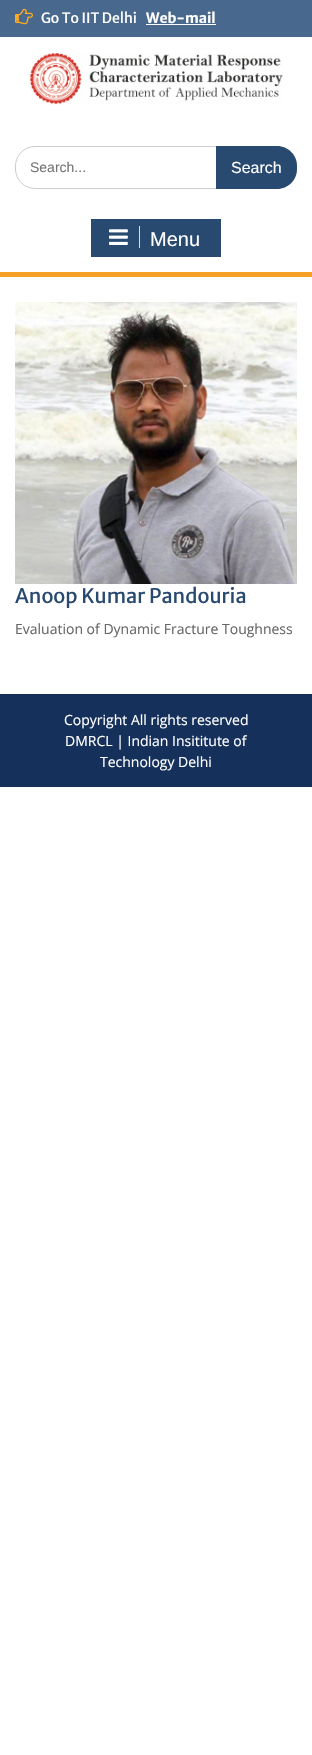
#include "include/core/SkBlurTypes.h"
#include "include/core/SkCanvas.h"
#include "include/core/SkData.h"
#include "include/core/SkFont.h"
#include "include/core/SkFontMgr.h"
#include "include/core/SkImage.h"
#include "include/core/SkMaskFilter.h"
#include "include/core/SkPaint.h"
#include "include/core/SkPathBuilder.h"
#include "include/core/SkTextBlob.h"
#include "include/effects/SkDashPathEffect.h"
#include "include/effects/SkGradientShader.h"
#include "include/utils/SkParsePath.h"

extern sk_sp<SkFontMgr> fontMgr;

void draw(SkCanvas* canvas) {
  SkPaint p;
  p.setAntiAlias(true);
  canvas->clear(SK_ColorWHITE);
  p.setColor(SkColorSetRGB(73, 104, 142));
  canvas->drawRect(SkRect::MakeLTRB(0, 0, 312, 37), p);
  canvas->drawImageRect(SkImages::DeferredFromEncodedData(SkData::MakeFromFileName("images/1.png")), SkRect::MakeLTRB(15, 8, 33, 25), SkSamplingOptions());
  p.setColor(SK_ColorWHITE);
  canvas->drawRect(SkRect::MakeLTRB(146, 24, 216, 25), p);
  canvas->drawImageRect(SkImages::DeferredFromEncodedData(SkData::MakeFromFileName("images/2.png")), SkRect::MakeLTRB(30, 53, 283, 105), SkSamplingOptions());
  p.setStyle(SkPaint::kStroke_Style);
  p.setStrokeWidth(1);
  p.setColor(SkColorSetRGB(204, 204, 204));
  canvas->drawRoundRect(SkRect::MakeLTRB(15.5f, 146.5f, 296.5f, 188.5f), 19.5f, 19.5f, p);
  p.setStyle(SkPaint::kFill_Style);
  p.setColor(SkColorSetRGB(41, 74, 112));
  canvas->drawPath(SkPathBuilder().moveTo(216, 146).lineTo(277, 146).cubicTo(288, 146, 297, 155, 297, 166).lineTo(297, 169).cubicTo(297, 180, 288, 189, 277, 189).lineTo(216, 189).close().detach(), p);
  p.setColor(SkColorSetRGB(244, 160, 36));
  canvas->drawRect(SkRect::MakeLTRB(0, 272, 312, 277), p);
  p.setColor(SkColorSetRGB(41, 74, 112));
  canvas->drawRect(SkRect::MakeLTRB(91, 219, 221, 257), p);
  p.setColor(SkColorSetRGB(221, 221, 221));
  canvas->drawRect(SkRect::MakeLTRB(139, 226, 140, 248), p);
  canvas->drawImageRect(SkImages::DeferredFromEncodedData(SkData::MakeFromFileName("images/3.png")), SkRect::MakeLTRB(109, 229, 128, 245), SkSamplingOptions());
  canvas->drawImageRect(SkImages::DeferredFromEncodedData(SkData::MakeFromFileName("images/4.png")), SkRect::MakeLTRB(15, 302, 297, 584), SkSamplingOptions());
  p.setColor(SkColorSetRGB(21, 48, 91));
  canvas->drawRect(SkRect::MakeLTRB(0, 694, 312, 787), p);
  SkFont font1(fontMgr->matchFamilyStyle("Merriweather Sans", SkFontStyle::Normal()), 14);
  font1.setSubpixel(true);
  p.setColor(SK_ColorWHITE);
  canvas->drawString("Go To IIT Delhi", 41, 23, font1, p);
  SkFont font2(fontMgr->matchFamilyStyle("Merriweather Sans", SkFontStyle::Bold()), 14);
  font2.setSubpixel(true);
  canvas->drawString("Web-mail", 146, 23, font2, p);
  SkFont font3(fontMgr->matchFamilyStyle("Liberation Sans", SkFontStyle::Normal()), 14);
  font3.setSubpixel(true);
  p.setColor(SkColorSetRGB(117, 117, 117));
  canvas->drawString("Search...", 30, 172, font3, p);
  SkFont font4(fontMgr->matchFamilyStyle("Liberation Sans", SkFontStyle::Normal()), 16);
  font4.setSubpixel(true);
  p.setColor(SK_ColorWHITE);
  canvas->drawString("Search", 231, 173, font4, p);
  SkFont font5(fontMgr->matchFamilyStyle("Liberation Sans", SkFontStyle::Normal()), 20);
  font5.setSubpixel(true);
  canvas->drawString("Menu", 150, 246, font5, p);
  SkFont font6(fontMgr->matchFamilyStyle("Merriweather Sans", SkFontStyle::Normal()), 20);
  font6.setSubpixel(true);
  p.setColor(SkColorSetRGB(41, 74, 112));
  canvas->drawString("Anoop Kumar Pandouria", 15, 603, font6, p);
  SkFont font7(fontMgr->matchFamilyStyle("Open Sans", SkFontStyle::Normal()), 14);
  font7.setSubpixel(true);
  p.setColor(SkColorSetRGB(102, 102, 102));
  canvas->drawString("Evaluation of Dynamic Fracture Toughness", 15, 634, font7, p);
  p.setColor(SK_ColorWHITE);
  canvas->drawString("Copyright All rights reserved", 64, 725, font7, p);
  canvas->drawString("DMRCL | Indian Insititute of", 65, 746, font7, p);
  canvas->drawString("Technology Delhi", 100, 767, font7, p);
}
